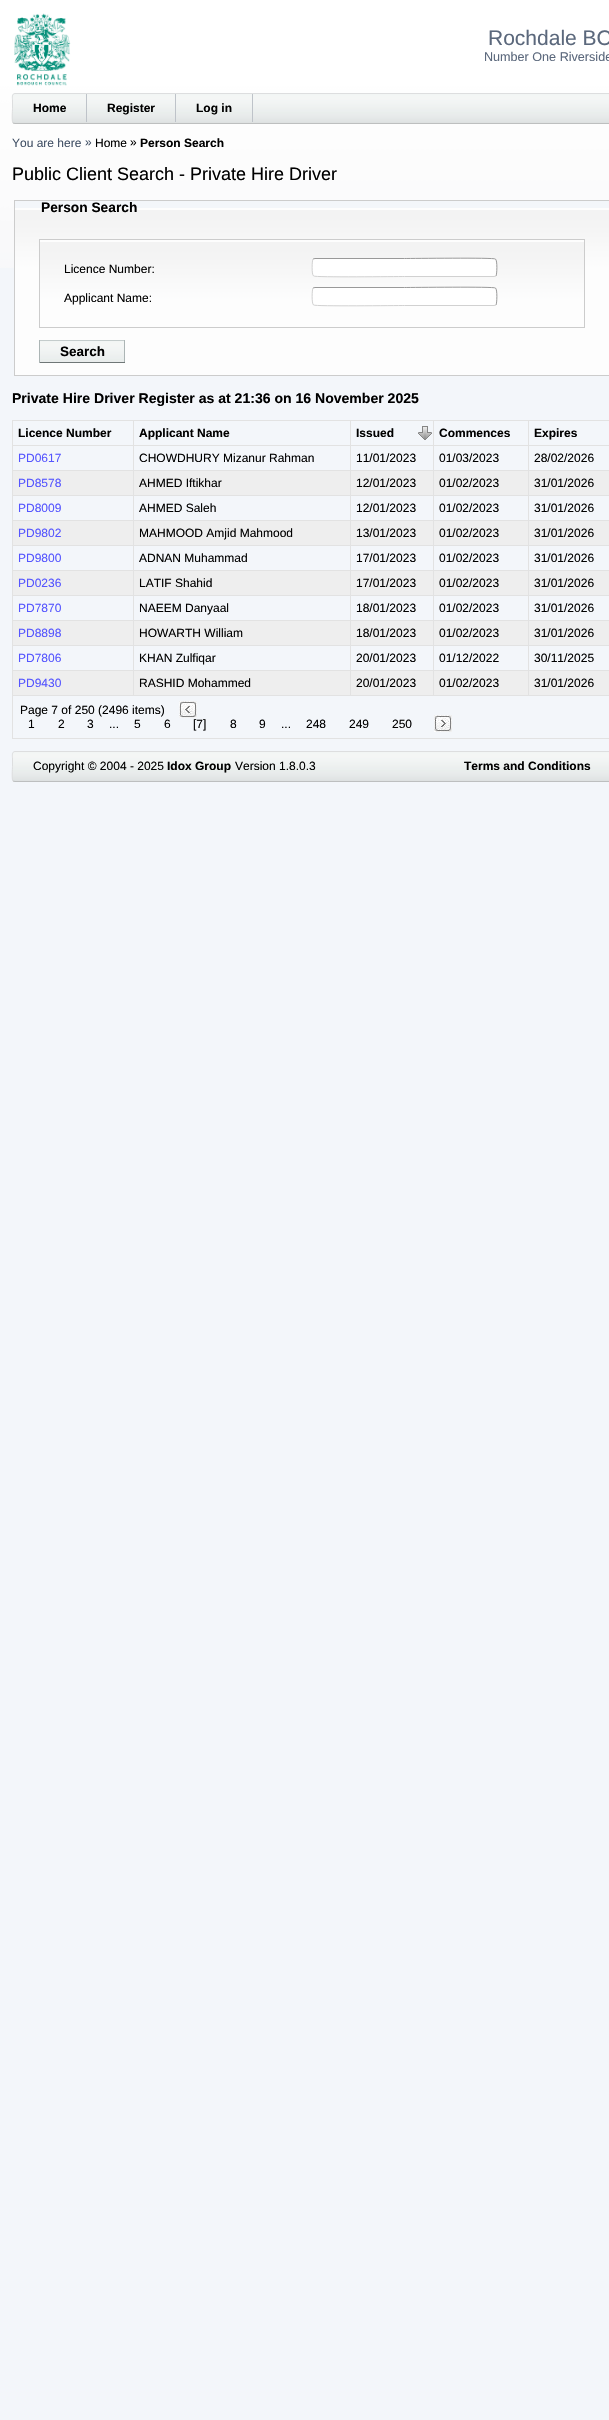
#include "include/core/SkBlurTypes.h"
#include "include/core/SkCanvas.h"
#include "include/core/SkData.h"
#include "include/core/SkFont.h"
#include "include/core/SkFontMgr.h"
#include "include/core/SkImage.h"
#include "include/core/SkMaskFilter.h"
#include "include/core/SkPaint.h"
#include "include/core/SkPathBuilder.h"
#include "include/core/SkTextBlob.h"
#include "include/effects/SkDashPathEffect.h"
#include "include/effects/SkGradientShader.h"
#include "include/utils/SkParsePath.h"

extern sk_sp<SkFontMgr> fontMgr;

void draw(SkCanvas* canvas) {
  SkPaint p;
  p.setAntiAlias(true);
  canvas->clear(SkColorSetRGB(243, 246, 250));
  canvas->drawImageRect(SkImages::DeferredFromEncodedData(SkData::MakeFromFileName("images/1.png")), SkRect::MakeLTRB(0, 0, 609, 268), SkSamplingOptions());
  canvas->drawImageRect(SkImages::DeferredFromEncodedData(SkData::MakeFromFileName("images/2.png")), SkRect::MakeLTRB(14, 13, 71, 86), SkSamplingOptions());
  canvas->drawImageRect(SkImages::DeferredFromEncodedData(SkData::MakeFromFileName("images/3.png")), SkRect::MakeLTRB(12, 94, 609, 124), SkSamplingOptions());
  p.setStyle(SkPaint::kStroke_Style);
  p.setStrokeWidth(1);
  p.setColor(SkColorSetRGB(189, 191, 191));
  canvas->drawPath(SkPathBuilder().moveTo(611, 123).lineTo(609, 123.5f).lineTo(15, 123.5f).lineTo(13, 123).detach(), p);
  p.setColor(SkColorSetRGB(221, 222, 223));
  canvas->drawPath(SkPathBuilder().moveTo(13, 123).cubicTo(11.5f, 121, 12.5f, 111, 12.5f, 108.5f).lineTo(12.5f, 100).cubicTo(12.5f, 98.5f, 11.5f, 93.5f, 15, 93.5f).lineTo(609, 93.5f).cubicTo(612.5f, 93.5f, 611.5f, 98.5f, 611.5f, 100).lineTo(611.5f, 108.5f).cubicTo(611.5f, 111, 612.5f, 121, 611, 123).detach(), p);
  p.setStyle(SkPaint::kFill_Style);
  p.setColor(SkColorSetRGB(190, 195, 201));
  canvas->drawRect(SkRect::MakeLTRB(86, 94, 87, 122), p);
  canvas->drawRect(SkRect::MakeLTRB(175, 94, 176, 122), p);
  canvas->drawRect(SkRect::MakeLTRB(252, 94, 253, 122), p);
  p.setColor(SkColorSetRGB(243, 246, 250));
  canvas->drawRect(SkRect::MakeLTRB(15, 201, 609, 208), p);
  canvas->drawImageRect(SkImages::DeferredFromEncodedData(SkData::MakeFromFileName("images/4.png")), SkRect::MakeLTRB(15, 208, 609, 375), SkSamplingOptions());
  p.setStyle(SkPaint::kStroke_Style);
  p.setColor(SkColorSetRGB(204, 204, 204));
  canvas->drawRect(SkRect::MakeLTRB(14.5f, 200.5f, 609.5f, 375.5f), p);
  canvas->drawImageRect(SkImages::DeferredFromEncodedData(SkData::MakeFromFileName("images/5.png")), SkRect::MakeLTRB(40, 240, 584, 327), SkSamplingOptions());
  canvas->drawRect(SkRect::MakeLTRB(39.5f, 239.5f, 584.5f, 327.5f), p);
  p.setStyle(SkPaint::kFill_Style);
  p.setColor(SK_ColorWHITE);
  canvas->drawRoundRect(SkRect::MakeLTRB(312, 258, 497, 277), 3, 3, p);
  p.setStyle(SkPaint::kStroke_Style);
  p.setColor(SkColorSetRGB(153, 153, 153));
  canvas->drawPath(SkPathBuilder().moveTo(313, 259).lineTo(315, 258.5f).lineTo(404.5f, 258.5f).cubicTo(412.5f, 258.5f, 493.5f, 257.5f, 495.5f, 259).cubicTo(497.5f, 260.5f, 497, 274.5f, 496, 276).detach(), p);
  p.setColor(SkColorSetRGB(209, 209, 209));
  canvas->drawPath(SkPathBuilder().moveTo(496, 276).lineTo(494, 276.5f).lineTo(404.5f, 276.5f).cubicTo(396.5f, 276.5f, 315.5f, 277.5f, 313.5f, 276).cubicTo(311.5f, 274.5f, 312, 260.5f, 313, 259).detach(), p);
  p.setStyle(SkPaint::kFill_Style);
  p.setColor(SK_ColorWHITE);
  canvas->drawRoundRect(SkRect::MakeLTRB(312, 287, 497, 306), 3, 3, p);
  p.setStyle(SkPaint::kStroke_Style);
  p.setColor(SkColorSetRGB(153, 153, 153));
  canvas->drawPath(SkPathBuilder().moveTo(313, 288).lineTo(315, 287.5f).lineTo(404.5f, 287.5f).cubicTo(412.5f, 287.5f, 493.5f, 286.5f, 495.5f, 288).cubicTo(497.5f, 289.5f, 497, 303.5f, 496, 305).detach(), p);
  p.setColor(SkColorSetRGB(209, 209, 209));
  canvas->drawPath(SkPathBuilder().moveTo(496, 305).lineTo(494, 305.5f).lineTo(404.5f, 305.5f).cubicTo(396.5f, 305.5f, 315.5f, 306.5f, 313.5f, 305).cubicTo(311.5f, 303.5f, 312, 289.5f, 313, 288).detach(), p);
  canvas->drawImageRect(SkImages::DeferredFromEncodedData(SkData::MakeFromFileName("images/6.png")), SkRect::MakeLTRB(40, 341, 124, 362), SkSamplingOptions());
  p.setStyle(SkPaint::kFill_Style);
  p.setColor(SkColorSetRGB(196, 204, 204));
  canvas->drawRect(SkRect::MakeLTRB(39, 340, 125, 341), p);
  p.setColor(SkColorSetRGB(172, 181, 181));
  canvas->drawRect(SkRect::MakeLTRB(124, 340, 125, 363), p);
  p.setColor(SkColorSetRGB(111, 119, 119));
  canvas->drawRect(SkRect::MakeLTRB(39, 362, 125, 363), p);
  p.setColor(SkColorSetRGB(172, 181, 181));
  canvas->drawRect(SkRect::MakeLTRB(39, 340, 40, 363), p);
  p.setColor(SkColorSetRGB(226, 226, 226));
  canvas->drawRect(SkRect::MakeLTRB(528, 420, 609, 421), p);
  canvas->drawRect(SkRect::MakeLTRB(528, 445, 609, 446), p);
  canvas->drawRect(SkRect::MakeLTRB(528, 470, 609, 471), p);
  p.setColor(SkColorSetRGB(238, 238, 238));
  canvas->drawRect(SkRect::MakeLTRB(13, 471, 609, 495), p);
  p.setColor(SkColorSetRGB(226, 226, 226));
  canvas->drawRect(SkRect::MakeLTRB(528, 495, 609, 496), p);
  canvas->drawRect(SkRect::MakeLTRB(528, 520, 609, 521), p);
  p.setColor(SkColorSetRGB(238, 238, 238));
  canvas->drawRect(SkRect::MakeLTRB(13, 521, 609, 545), p);
  p.setColor(SkColorSetRGB(226, 226, 226));
  canvas->drawRect(SkRect::MakeLTRB(528, 545, 609, 546), p);
  canvas->drawRect(SkRect::MakeLTRB(528, 570, 609, 571), p);
  p.setColor(SkColorSetRGB(238, 238, 238));
  canvas->drawRect(SkRect::MakeLTRB(13, 571, 609, 595), p);
  p.setColor(SkColorSetRGB(226, 226, 226));
  canvas->drawRect(SkRect::MakeLTRB(528, 595, 609, 596), p);
  canvas->drawRect(SkRect::MakeLTRB(528, 620, 609, 621), p);
  p.setColor(SkColorSetRGB(238, 238, 238));
  canvas->drawRect(SkRect::MakeLTRB(13, 621, 609, 645), p);
  p.setColor(SkColorSetRGB(226, 226, 226));
  canvas->drawRect(SkRect::MakeLTRB(528, 645, 609, 646), p);
  canvas->drawRect(SkRect::MakeLTRB(528, 670, 609, 671), p);
  p.setColor(SkColorSetRGB(238, 238, 238));
  canvas->drawRect(SkRect::MakeLTRB(13, 671, 609, 695), p);
  p.setColor(SkColorSetRGB(226, 226, 226));
  canvas->drawRect(SkRect::MakeLTRB(528, 695, 609, 696), p);
  canvas->drawRect(SkRect::MakeLTRB(528, 670, 529, 696), p);
  canvas->drawRect(SkRect::MakeLTRB(433, 670, 529, 671), p);
  canvas->drawRect(SkRect::MakeLTRB(528, 645, 529, 671), p);
  canvas->drawRect(SkRect::MakeLTRB(433, 645, 529, 646), p);
  canvas->drawRect(SkRect::MakeLTRB(528, 620, 529, 646), p);
  canvas->drawRect(SkRect::MakeLTRB(433, 620, 529, 621), p);
  canvas->drawRect(SkRect::MakeLTRB(528, 595, 529, 621), p);
  canvas->drawRect(SkRect::MakeLTRB(433, 595, 529, 596), p);
  canvas->drawRect(SkRect::MakeLTRB(528, 570, 529, 596), p);
  canvas->drawRect(SkRect::MakeLTRB(433, 570, 529, 571), p);
  canvas->drawRect(SkRect::MakeLTRB(528, 545, 529, 571), p);
  canvas->drawRect(SkRect::MakeLTRB(433, 545, 529, 546), p);
  canvas->drawRect(SkRect::MakeLTRB(528, 520, 529, 546), p);
  canvas->drawRect(SkRect::MakeLTRB(433, 520, 529, 521), p);
  canvas->drawRect(SkRect::MakeLTRB(528, 495, 529, 521), p);
  canvas->drawRect(SkRect::MakeLTRB(433, 495, 529, 496), p);
  canvas->drawRect(SkRect::MakeLTRB(528, 470, 529, 496), p);
  canvas->drawRect(SkRect::MakeLTRB(433, 470, 529, 471), p);
  canvas->drawRect(SkRect::MakeLTRB(528, 445, 529, 471), p);
  canvas->drawRect(SkRect::MakeLTRB(433, 445, 529, 446), p);
  canvas->drawRect(SkRect::MakeLTRB(528, 420, 529, 446), p);
  canvas->drawRect(SkRect::MakeLTRB(433, 420, 529, 421), p);
  canvas->drawRect(SkRect::MakeLTRB(433, 695, 529, 696), p);
  canvas->drawRect(SkRect::MakeLTRB(433, 670, 434, 696), p);
  canvas->drawRect(SkRect::MakeLTRB(350, 670, 434, 671), p);
  canvas->drawRect(SkRect::MakeLTRB(433, 645, 434, 671), p);
  canvas->drawRect(SkRect::MakeLTRB(350, 645, 434, 646), p);
  canvas->drawRect(SkRect::MakeLTRB(433, 620, 434, 646), p);
  canvas->drawRect(SkRect::MakeLTRB(350, 620, 434, 621), p);
  canvas->drawRect(SkRect::MakeLTRB(433, 595, 434, 621), p);
  canvas->drawRect(SkRect::MakeLTRB(350, 595, 434, 596), p);
  canvas->drawRect(SkRect::MakeLTRB(433, 570, 434, 596), p);
  canvas->drawRect(SkRect::MakeLTRB(350, 570, 434, 571), p);
  canvas->drawRect(SkRect::MakeLTRB(433, 545, 434, 571), p);
  canvas->drawRect(SkRect::MakeLTRB(350, 545, 434, 546), p);
  canvas->drawRect(SkRect::MakeLTRB(433, 520, 434, 546), p);
  canvas->drawRect(SkRect::MakeLTRB(350, 520, 434, 521), p);
  canvas->drawRect(SkRect::MakeLTRB(433, 495, 434, 521), p);
  canvas->drawRect(SkRect::MakeLTRB(350, 495, 434, 496), p);
  canvas->drawRect(SkRect::MakeLTRB(433, 470, 434, 496), p);
  canvas->drawRect(SkRect::MakeLTRB(350, 470, 434, 471), p);
  canvas->drawRect(SkRect::MakeLTRB(433, 445, 434, 471), p);
  canvas->drawRect(SkRect::MakeLTRB(350, 445, 434, 446), p);
  canvas->drawRect(SkRect::MakeLTRB(433, 420, 434, 446), p);
  canvas->drawRect(SkRect::MakeLTRB(350, 420, 434, 421), p);
  canvas->drawRect(SkRect::MakeLTRB(350, 695, 434, 696), p);
  canvas->drawRect(SkRect::MakeLTRB(350, 670, 351, 696), p);
  canvas->drawRect(SkRect::MakeLTRB(133, 670, 351, 671), p);
  canvas->drawRect(SkRect::MakeLTRB(350, 645, 351, 671), p);
  canvas->drawRect(SkRect::MakeLTRB(133, 645, 351, 646), p);
  canvas->drawRect(SkRect::MakeLTRB(350, 620, 351, 646), p);
  canvas->drawRect(SkRect::MakeLTRB(133, 620, 351, 621), p);
  canvas->drawRect(SkRect::MakeLTRB(350, 595, 351, 621), p);
  canvas->drawRect(SkRect::MakeLTRB(133, 595, 351, 596), p);
  canvas->drawRect(SkRect::MakeLTRB(350, 570, 351, 596), p);
  canvas->drawRect(SkRect::MakeLTRB(133, 570, 351, 571), p);
  canvas->drawRect(SkRect::MakeLTRB(350, 545, 351, 571), p);
  canvas->drawRect(SkRect::MakeLTRB(133, 545, 351, 546), p);
  canvas->drawRect(SkRect::MakeLTRB(350, 520, 351, 546), p);
  canvas->drawRect(SkRect::MakeLTRB(133, 520, 351, 521), p);
  canvas->drawRect(SkRect::MakeLTRB(350, 495, 351, 521), p);
  canvas->drawRect(SkRect::MakeLTRB(133, 495, 351, 496), p);
  canvas->drawRect(SkRect::MakeLTRB(350, 470, 351, 496), p);
  canvas->drawRect(SkRect::MakeLTRB(133, 470, 351, 471), p);
  canvas->drawRect(SkRect::MakeLTRB(350, 445, 351, 471), p);
  canvas->drawRect(SkRect::MakeLTRB(133, 445, 351, 446), p);
  canvas->drawRect(SkRect::MakeLTRB(350, 420, 351, 446), p);
  canvas->drawRect(SkRect::MakeLTRB(133, 420, 351, 421), p);
  canvas->drawRect(SkRect::MakeLTRB(133, 695, 351, 696), p);
  canvas->drawRect(SkRect::MakeLTRB(133, 670, 134, 696), p);
  canvas->drawRect(SkRect::MakeLTRB(12, 670, 134, 671), p);
  canvas->drawRect(SkRect::MakeLTRB(133, 645, 134, 671), p);
  canvas->drawRect(SkRect::MakeLTRB(12, 645, 134, 646), p);
  canvas->drawRect(SkRect::MakeLTRB(133, 620, 134, 646), p);
  canvas->drawRect(SkRect::MakeLTRB(12, 620, 134, 621), p);
  canvas->drawRect(SkRect::MakeLTRB(133, 595, 134, 621), p);
  canvas->drawRect(SkRect::MakeLTRB(12, 595, 134, 596), p);
  canvas->drawRect(SkRect::MakeLTRB(133, 570, 134, 596), p);
  canvas->drawRect(SkRect::MakeLTRB(12, 570, 134, 571), p);
  canvas->drawRect(SkRect::MakeLTRB(133, 545, 134, 571), p);
  canvas->drawRect(SkRect::MakeLTRB(12, 545, 134, 546), p);
  canvas->drawRect(SkRect::MakeLTRB(133, 520, 134, 546), p);
  canvas->drawRect(SkRect::MakeLTRB(12, 520, 134, 521), p);
  canvas->drawRect(SkRect::MakeLTRB(133, 495, 134, 521), p);
  canvas->drawRect(SkRect::MakeLTRB(12, 495, 134, 496), p);
  canvas->drawRect(SkRect::MakeLTRB(133, 470, 134, 496), p);
  canvas->drawRect(SkRect::MakeLTRB(12, 470, 134, 471), p);
  canvas->drawRect(SkRect::MakeLTRB(133, 445, 134, 471), p);
  canvas->drawRect(SkRect::MakeLTRB(12, 445, 134, 446), p);
  canvas->drawRect(SkRect::MakeLTRB(133, 420, 134, 446), p);
  canvas->drawRect(SkRect::MakeLTRB(12, 420, 134, 421), p);
  canvas->drawRect(SkRect::MakeLTRB(12, 695, 134, 696), p);
  canvas->drawRect(SkRect::MakeLTRB(12, 670, 13, 696), p);
  canvas->drawRect(SkRect::MakeLTRB(12, 645, 13, 671), p);
  canvas->drawRect(SkRect::MakeLTRB(12, 620, 13, 646), p);
  canvas->drawRect(SkRect::MakeLTRB(12, 595, 13, 621), p);
  canvas->drawRect(SkRect::MakeLTRB(12, 570, 13, 596), p);
  canvas->drawRect(SkRect::MakeLTRB(12, 545, 13, 571), p);
  canvas->drawRect(SkRect::MakeLTRB(12, 520, 13, 546), p);
  canvas->drawRect(SkRect::MakeLTRB(12, 495, 13, 521), p);
  canvas->drawRect(SkRect::MakeLTRB(12, 470, 13, 496), p);
  canvas->drawRect(SkRect::MakeLTRB(12, 445, 13, 471), p);
  canvas->drawRect(SkRect::MakeLTRB(12, 420, 13, 446), p);
  canvas->drawImageRect(SkImages::DeferredFromEncodedData(SkData::MakeFromFileName("images/7.png")), SkRect::MakeLTRB(418, 426, 432, 440), SkSamplingOptions());
  canvas->drawRect(SkRect::MakeLTRB(12, 738, 609, 739), p);
  canvas->drawRect(SkRect::MakeLTRB(12, 696, 13, 739), p);
  canvas->drawImageRect(SkImages::DeferredFromEncodedData(SkData::MakeFromFileName("images/8.png")), SkRect::MakeLTRB(179, 701, 197, 718), SkSamplingOptions());
  canvas->drawImageRect(SkImages::DeferredFromEncodedData(SkData::MakeFromFileName("images/9.png")), SkRect::MakeLTRB(434, 715, 452, 732), SkSamplingOptions());
  canvas->drawImageRect(SkImages::DeferredFromEncodedData(SkData::MakeFromFileName("images/10.png")), SkRect::MakeLTRB(12, 752, 609, 782), SkSamplingOptions());
  p.setStyle(SkPaint::kStroke_Style);
  p.setColor(SkColorSetRGB(189, 191, 191));
  canvas->drawPath(SkPathBuilder().moveTo(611, 781).lineTo(609, 781.5f).lineTo(15, 781.5f).lineTo(13, 781).detach(), p);
  p.setColor(SkColorSetRGB(221, 222, 223));
  canvas->drawPath(SkPathBuilder().moveTo(13, 781).cubicTo(11.5f, 779, 12.5f, 769, 12.5f, 766.5f).lineTo(12.5f, 758).cubicTo(12.5f, 756.5f, 11.5f, 751.5f, 15, 751.5f).lineTo(609, 751.5f).cubicTo(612.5f, 751.5f, 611.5f, 756.5f, 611.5f, 758).lineTo(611.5f, 766.5f).cubicTo(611.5f, 769, 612.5f, 779, 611, 781).detach(), p);
  SkFont font1(fontMgr->matchFamilyStyle("Liberation Sans", SkFontStyle::Normal()), 21);
  font1.setSubpixel(true);
  p.setStyle(SkPaint::kFill_Style);
  p.setColor(SkColorSetRGB(91, 104, 124));
  canvas->drawString("Rochdale BC", 488, 45, font1, p);
  SkFont font2(fontMgr->matchFamilyStyle("Liberation Sans", SkFontStyle::Normal()), 12.6f);
  font2.setSubpixel(true);
  canvas->drawString("Number One Riverside", 484, 61, font2, p);
  SkFont font3(fontMgr->matchFamilyStyle("Liberation Sans", SkFontStyle::Bold()), 12);
  font3.setSubpixel(true);
  p.setColor(SK_ColorBLACK);
  canvas->drawString("Home", 33, 112, font3, p);
  canvas->drawString("Register", 107, 112, font3, p);
  canvas->drawString("Log in", 196, 112, font3, p);
  SkFont font4(fontMgr->matchFamilyStyle("Liberation Sans", SkFontStyle::Normal()), 12);
  font4.setSubpixel(true);
  p.setColor(SkColorSetRGB(66, 81, 102));
  canvas->drawString("You are here", 12, 147, font4, p);
  canvas->drawString("»", 85, 146, font4, p);
  p.setColor(SK_ColorBLACK);
  canvas->drawString("Home", 95, 147, font4, p);
  canvas->drawString("»", 130, 146, font4, p);
  canvas->drawString("Person Search", 140, 147, font3, p);
  SkFont font5(fontMgr->matchFamilyStyle("Liberation Sans", SkFontStyle::Normal()), 18);
  font5.setSubpixel(true);
  canvas->drawString("Public Client Search - Private Hire Driver", 12, 180, font5, p);
  SkFont font6(fontMgr->matchFamilyStyle("Liberation Sans", SkFontStyle::Bold()), 13.75f);
  font6.setSubpixel(true);
  canvas->drawString("Person Search", 41, 212, font6, p);
  canvas->drawString("Licence Number:", 64, 273, font4, p);
  canvas->drawString("Applicant Name:", 64, 302, font4, p);
  SkFont font7(fontMgr->matchFamilyStyle("Liberation Sans", SkFontStyle::Bold()), 13.5f);
  font7.setSubpixel(true);
  canvas->drawString("Search", 60, 356, font7, p);
  SkFont font8(fontMgr->matchFamilyStyle("Liberation Sans", SkFontStyle::Bold()), 14.05f);
  font8.setSubpixel(true);
  canvas->drawString("Private Hire Driver Register as at 21:36 on 16 November 2025", 12, 403, font8, p);
  canvas->drawString("Licence Number", 18, 437, font3, p);
  canvas->drawString("Applicant Name", 139, 437, font3, p);
  canvas->drawString("Issued", 356, 437, font3, p);
  canvas->drawString("Commences", 439, 437, font3, p);
  canvas->drawString("Expires", 534, 437, font3, p);
  p.setColor(SkColorSetRGB(85, 85, 255));
  canvas->drawString("PD0617", 18, 462, font4, p);
  p.setColor(SK_ColorBLACK);
  canvas->drawString("CHOWDHURY Mizanur Rahman", 139, 462, font4, p);
  canvas->drawString("11/01/2023", 356, 462, font4, p);
  canvas->drawString("01/03/2023", 439, 462, font4, p);
  canvas->drawString("28/02/2026", 534, 462, font4, p);
  p.setColor(SkColorSetRGB(85, 85, 255));
  canvas->drawString("PD8578", 18, 487, font4, p);
  p.setColor(SK_ColorBLACK);
  canvas->drawString("AHMED Iftikhar", 139, 487, font4, p);
  canvas->drawString("12/01/2023", 356, 487, font4, p);
  canvas->drawString("01/02/2023", 439, 487, font4, p);
  canvas->drawString("31/01/2026", 534, 487, font4, p);
  p.setColor(SkColorSetRGB(85, 85, 255));
  canvas->drawString("PD8009", 18, 512, font4, p);
  p.setColor(SK_ColorBLACK);
  canvas->drawString("AHMED Saleh", 139, 512, font4, p);
  canvas->drawString("12/01/2023", 356, 512, font4, p);
  canvas->drawString("01/02/2023", 439, 512, font4, p);
  canvas->drawString("31/01/2026", 534, 512, font4, p);
  p.setColor(SkColorSetRGB(85, 85, 255));
  canvas->drawString("PD9802", 18, 537, font4, p);
  p.setColor(SK_ColorBLACK);
  canvas->drawString("MAHMOOD Amjid Mahmood", 139, 537, font4, p);
  canvas->drawString("13/01/2023", 356, 537, font4, p);
  canvas->drawString("01/02/2023", 439, 537, font4, p);
  canvas->drawString("31/01/2026", 534, 537, font4, p);
  p.setColor(SkColorSetRGB(85, 85, 255));
  canvas->drawString("PD9800", 18, 562, font4, p);
  p.setColor(SK_ColorBLACK);
  canvas->drawString("ADNAN Muhammad", 139, 562, font4, p);
  canvas->drawString("17/01/2023", 356, 562, font4, p);
  canvas->drawString("01/02/2023", 439, 562, font4, p);
  canvas->drawString("31/01/2026", 534, 562, font4, p);
  p.setColor(SkColorSetRGB(85, 85, 255));
  canvas->drawString("PD0236", 18, 587, font4, p);
  p.setColor(SK_ColorBLACK);
  canvas->drawString("LATIF Shahid", 139, 587, font4, p);
  canvas->drawString("17/01/2023", 356, 587, font4, p);
  canvas->drawString("01/02/2023", 439, 587, font4, p);
  canvas->drawString("31/01/2026", 534, 587, font4, p);
  p.setColor(SkColorSetRGB(85, 85, 255));
  canvas->drawString("PD7870", 18, 612, font4, p);
  p.setColor(SK_ColorBLACK);
  canvas->drawString("NAEEM Danyaal", 139, 612, font4, p);
  canvas->drawString("18/01/2023", 356, 612, font4, p);
  canvas->drawString("01/02/2023", 439, 612, font4, p);
  canvas->drawString("31/01/2026", 534, 612, font4, p);
  p.setColor(SkColorSetRGB(85, 85, 255));
  canvas->drawString("PD8898", 18, 637, font4, p);
  p.setColor(SK_ColorBLACK);
  canvas->drawString("HOWARTH William", 139, 637, font4, p);
  canvas->drawString("18/01/2023", 356, 637, font4, p);
  canvas->drawString("01/02/2023", 439, 637, font4, p);
  canvas->drawString("31/01/2026", 534, 637, font4, p);
  p.setColor(SkColorSetRGB(85, 85, 255));
  canvas->drawString("PD7806", 18, 662, font4, p);
  p.setColor(SK_ColorBLACK);
  canvas->drawString("KHAN Zulfiqar", 139, 662, font4, p);
  canvas->drawString("20/01/2023", 356, 662, font4, p);
  canvas->drawString("01/12/2022", 439, 662, font4, p);
  canvas->drawString("30/11/2025", 534, 662, font4, p);
  p.setColor(SkColorSetRGB(85, 85, 255));
  canvas->drawString("PD9430", 18, 687, font4, p);
  p.setColor(SK_ColorBLACK);
  canvas->drawString("RASHID Mohammed", 139, 687, font4, p);
  canvas->drawString("20/01/2023", 356, 687, font4, p);
  canvas->drawString("01/02/2023", 439, 687, font4, p);
  canvas->drawString("31/01/2026", 534, 687, font4, p);
  canvas->drawString("Page 7 of 250 (2496 items)", 20, 714, font4, p);
  canvas->drawString("1", 28, 728, font4, p);
  canvas->drawString("2", 58, 728, font4, p);
  canvas->drawString("3", 87, 728, font4, p);
  canvas->drawString("...", 109, 728, font4, p);
  canvas->drawString("5", 134, 728, font4, p);
  canvas->drawString("6", 164, 728, font4, p);
  canvas->drawString("[7]", 193, 728, font4, p);
  canvas->drawString("8", 230, 728, font4, p);
  canvas->drawString("9", 259, 728, font4, p);
  canvas->drawString("...", 281, 728, font4, p);
  canvas->drawString("248", 306, 728, font4, p);
  canvas->drawString("249", 349, 728, font4, p);
  canvas->drawString("250", 392, 728, font4, p);
  canvas->drawString("Copyright © 2004 - 2025", 33, 770, font4, p);
  canvas->drawString("Idox Group", 167, 770, font3, p);
  canvas->drawString("Version 1.8.0.3", 235, 770, font4, p);
  canvas->drawString("Terms and Conditions", 464, 770, font3, p);
}
